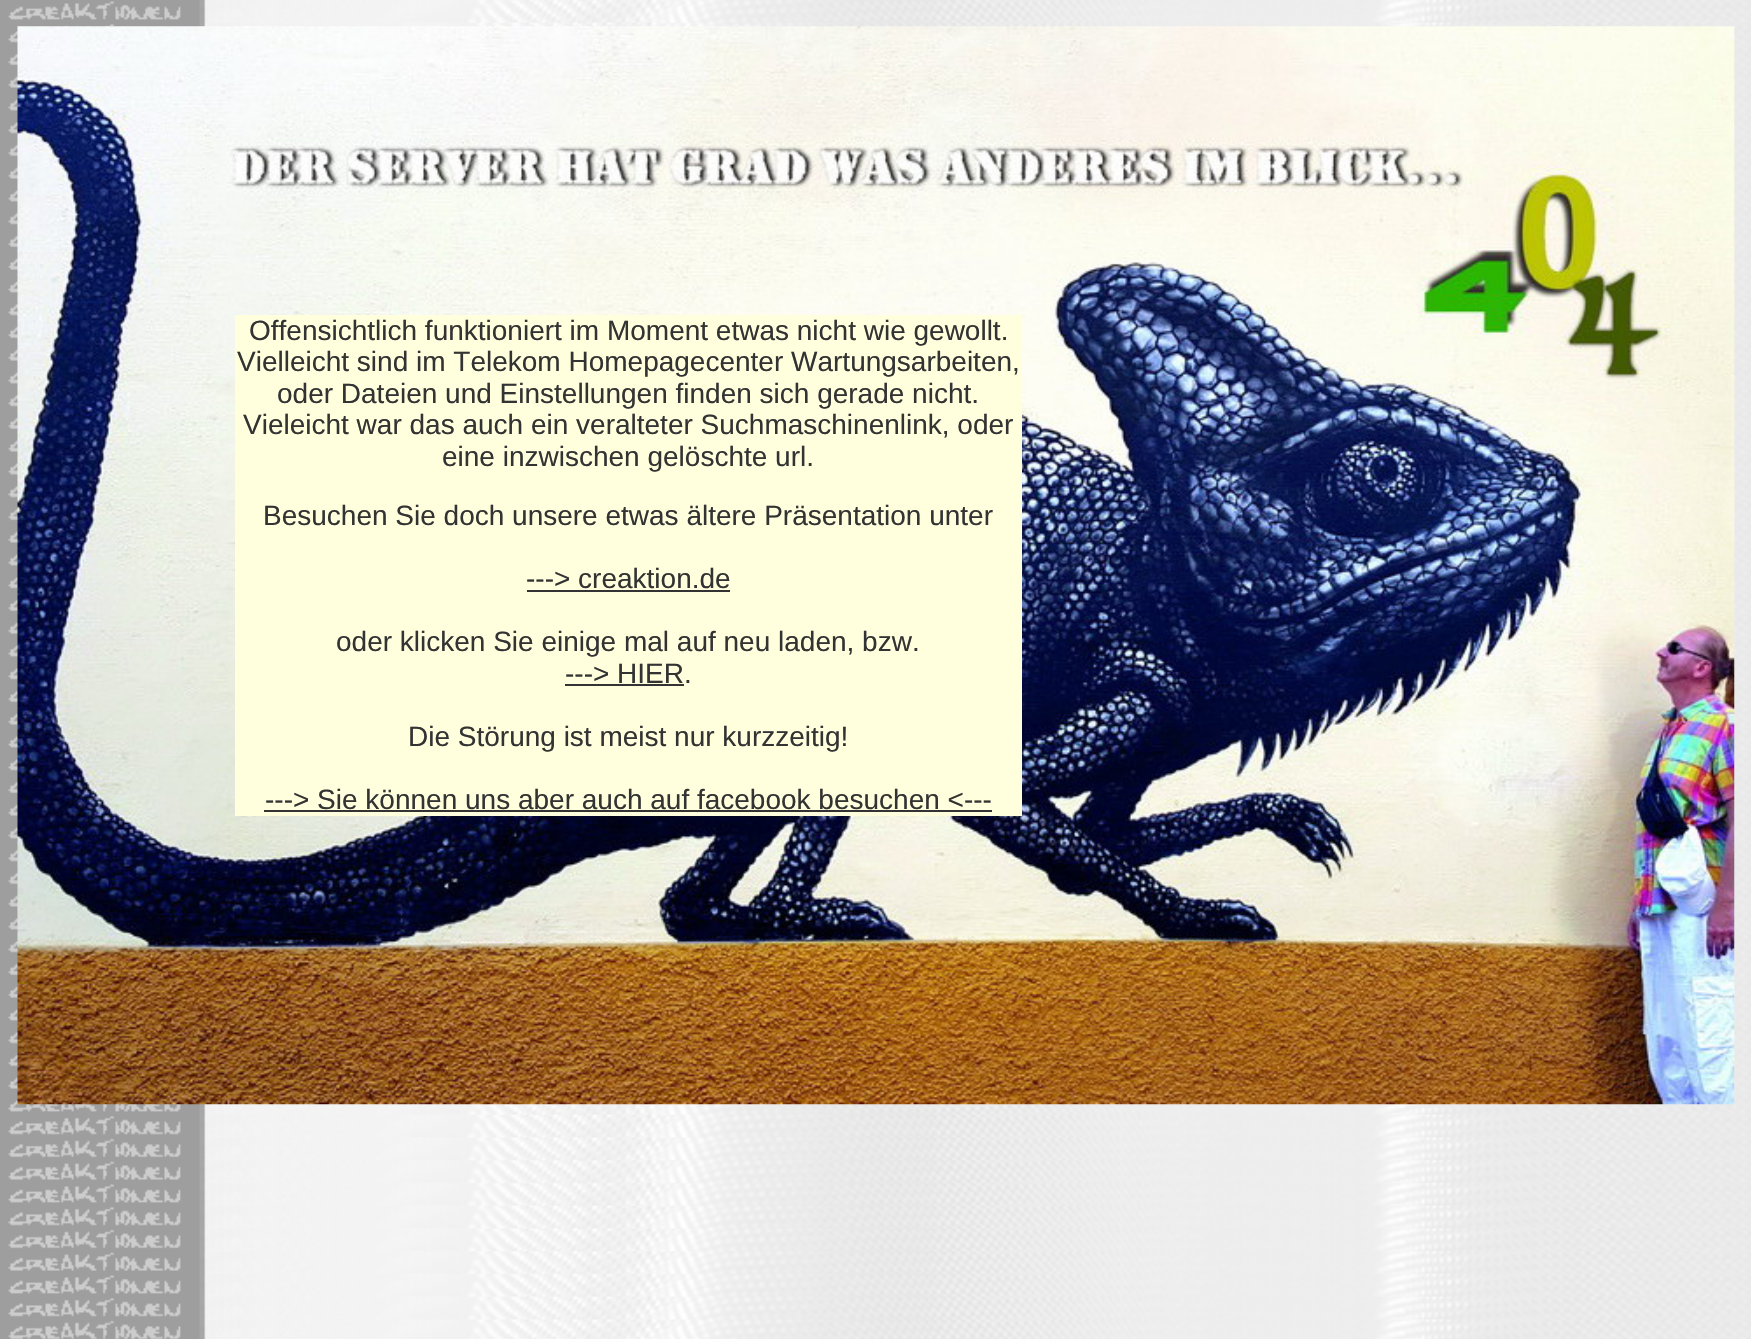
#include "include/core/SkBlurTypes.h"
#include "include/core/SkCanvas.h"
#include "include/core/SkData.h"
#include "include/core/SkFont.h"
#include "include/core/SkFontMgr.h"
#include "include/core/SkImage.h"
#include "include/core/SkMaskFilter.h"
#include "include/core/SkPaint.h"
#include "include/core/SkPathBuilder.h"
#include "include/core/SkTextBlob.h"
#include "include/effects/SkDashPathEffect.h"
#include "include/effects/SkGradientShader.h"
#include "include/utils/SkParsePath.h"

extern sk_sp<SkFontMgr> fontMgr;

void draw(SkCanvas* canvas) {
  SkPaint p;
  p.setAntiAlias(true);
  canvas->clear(SK_ColorWHITE);
  canvas->drawImageRect(SkImages::DeferredFromEncodedData(SkData::MakeFromFileName("images/1.png")), SkRect::MakeLTRB(0, 0, 1751, 1339), SkSamplingOptions());
  canvas->drawImageRect(SkImages::DeferredFromEncodedData(SkData::MakeFromFileName("images/2.png")), SkRect::MakeLTRB(17, 26, 1735, 1105), SkSamplingOptions());
  p.setColor(SkColorSetRGB(255, 255, 221));
  canvas->drawRect(SkRect::MakeLTRB(235, 315, 1022, 816), p);
  p.setColor(SkColorSetRGB(51, 51, 51));
  canvas->drawRect(SkRect::MakeLTRB(527, 590, 730, 592), p);
  canvas->drawRect(SkRect::MakeLTRB(565, 684, 684, 686), p);
  canvas->drawRect(SkRect::MakeLTRB(264, 810, 992, 812), p);
  SkFont font1(fontMgr->matchFamilyStyle("Liberation Sans", SkFontStyle::Normal()), 28);
  font1.setSubpixel(true);
  canvas->drawString("Offensichtlich funktioniert im Moment etwas nicht wie gewollt.", 249, 340, font1, p);
  canvas->drawString("Vielleicht sind im Telekom Homepagecenter Wartungsarbeiten,", 237, 371, font1, p);
  canvas->drawString("oder Dateien und Einstellungen finden sich gerade nicht.", 277, 403, font1, p);
  canvas->drawString("Vieleicht war das auch ein veralteter Suchmaschinenlink, oder", 243, 434, font1, p);
  canvas->drawString("eine inzwischen gelöschte url.", 442, 466, font1, p);
  canvas->drawString("Besuchen Sie doch unsere etwas ältere Präsentation unter", 263, 525, font1, p);
  canvas->drawString("---> creaktion.de", 526, 588, font1, p);
  canvas->drawString("oder klicken Sie einige mal auf neu laden, bzw.", 336, 651, font1, p);
  canvas->drawString("---> HIER.", 565, 683, font1, p);
  canvas->drawString("Die Störung ist meist nur kurzzeitig!", 408, 746, font1, p);
  canvas->drawString("---> Sie können uns aber auch auf facebook besuchen <---", 265, 809, font1, p);
}
